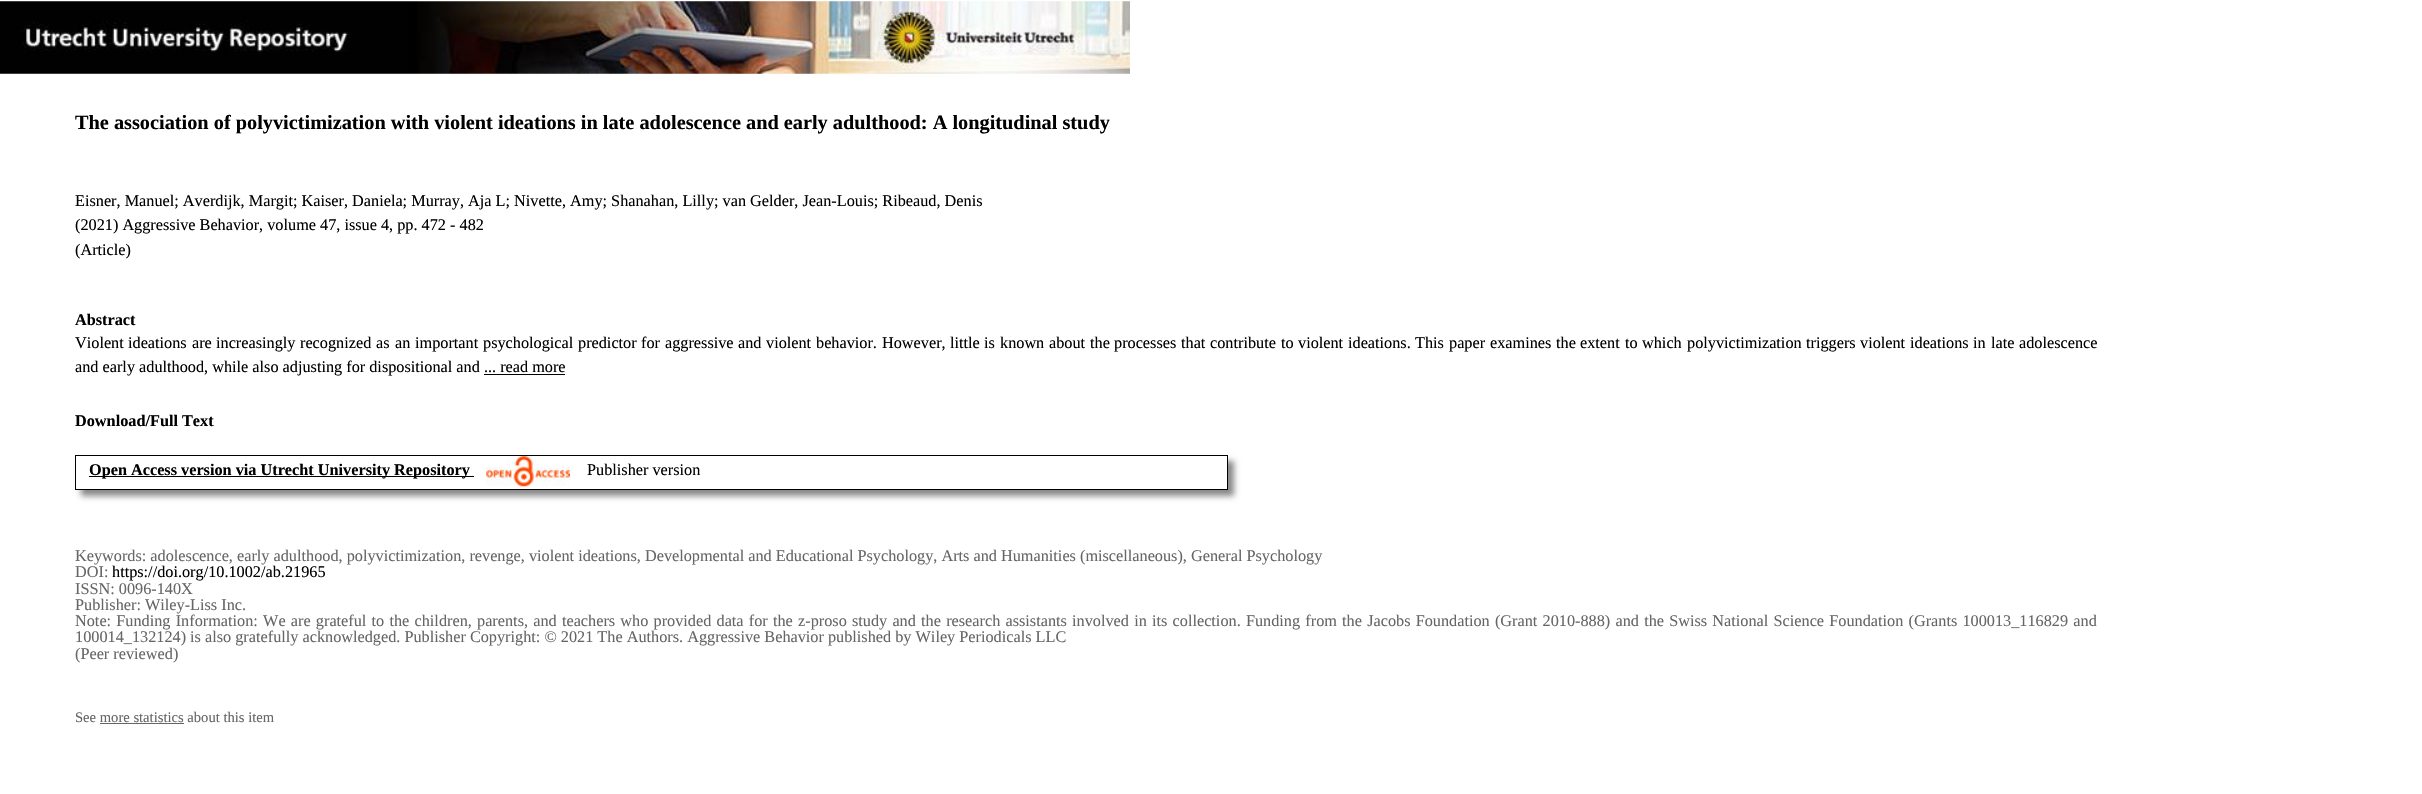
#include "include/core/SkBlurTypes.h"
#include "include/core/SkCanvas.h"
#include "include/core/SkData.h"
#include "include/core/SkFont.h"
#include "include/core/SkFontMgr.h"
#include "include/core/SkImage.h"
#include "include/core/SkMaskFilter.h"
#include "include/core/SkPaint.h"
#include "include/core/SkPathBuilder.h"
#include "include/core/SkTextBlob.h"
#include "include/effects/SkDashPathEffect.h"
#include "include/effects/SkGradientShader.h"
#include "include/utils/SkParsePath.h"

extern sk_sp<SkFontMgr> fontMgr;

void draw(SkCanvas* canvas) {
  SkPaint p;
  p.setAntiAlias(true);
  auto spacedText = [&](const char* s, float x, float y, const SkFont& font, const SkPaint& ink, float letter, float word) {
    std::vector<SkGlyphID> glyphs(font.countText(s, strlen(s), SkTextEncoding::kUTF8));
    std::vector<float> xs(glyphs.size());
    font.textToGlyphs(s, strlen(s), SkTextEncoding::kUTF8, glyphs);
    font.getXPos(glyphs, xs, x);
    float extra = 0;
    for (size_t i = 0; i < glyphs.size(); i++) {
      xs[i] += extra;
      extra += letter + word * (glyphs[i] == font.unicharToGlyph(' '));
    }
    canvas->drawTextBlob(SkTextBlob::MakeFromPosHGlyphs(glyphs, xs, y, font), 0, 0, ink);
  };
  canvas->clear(SK_ColorWHITE);
  canvas->drawImageRect(SkImages::DeferredFromEncodedData(SkData::MakeFromFileName("images/1.png")), SkRect::MakeLTRB(0, 1, 1130, 74), SkSamplingOptions());
  p.setColor(SK_ColorBLACK);
  canvas->drawRect(SkRect::MakeLTRB(484, 374, 565, 375), p);
  canvas->save();
  canvas->clipPath(SkPathBuilder(SkPathFillType::kEvenOdd).moveTo(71, 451).lineTo(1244, 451).lineTo(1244, 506).lineTo(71, 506).close().moveTo(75, 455).lineTo(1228, 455).lineTo(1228, 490).lineTo(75, 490).close().detach(), true);
  p.setColor(SkColorSetRGB(136, 136, 136));
  p.setMaskFilter(SkMaskFilter::MakeBlur(kNormal_SkBlurStyle, 3));
  canvas->drawRect(SkRect::MakeLTRB(81, 461, 1234, 496), p);
  p.setMaskFilter(nullptr);
  canvas->restore();
  p.setStyle(SkPaint::kStroke_Style);
  p.setStrokeWidth(1);
  p.setColor(SK_ColorBLACK);
  canvas->drawRect(SkRect::MakeLTRB(75.5f, 455.5f, 1227.5f, 489.5f), p);
  p.setStyle(SkPaint::kFill_Style);
  canvas->drawRect(SkRect::MakeLTRB(89, 476, 474, 477), p);
  canvas->drawImageRect(SkImages::DeferredFromEncodedData(SkData::MakeFromFileName("images/2.png")), SkRect::MakeLTRB(486, 456, 570, 487), SkSamplingOptions());
  p.setColor(SkColorSetRGB(102, 102, 102));
  canvas->drawRect(SkRect::MakeLTRB(100, 723, 184, 724), p);
  SkFont font1(fontMgr->matchFamilyStyle("Liberation Serif", SkFontStyle::Bold()), 20.3f);
  font1.setSubpixel(true);
  p.setColor(SK_ColorBLACK);
  canvas->drawString("The association of polyvictimization with violent ideations in late adolescence and early adulthood: A longitudinal study", 75, 129, font1, p);
  SkFont font2(fontMgr->matchFamilyStyle("Liberation Serif", SkFontStyle::Normal()), 16.25f);
  font2.setSubpixel(true);
  canvas->drawString("Eisner, Manuel; Averdijk, Margit; Kaiser, Daniela; Murray, Aja L; Nivette, Amy; Shanahan, Lilly; van Gelder, Jean-Louis; Ribeaud, Denis", 75, 206, font2, p);
  canvas->drawString("(2021) Aggressive Behavior, volume 47, issue 4, pp. 472 - 482", 75, 230, font2, p);
  canvas->drawString("(Article)", 75, 255, font2, p);
  SkFont font3(fontMgr->matchFamilyStyle("Liberation Serif", SkFontStyle::Bold()), 16.25f);
  font3.setSubpixel(true);
  canvas->drawString("Abstract", 75, 325, font3, p);
  canvas->drawString("Violent", 75, 348, font2, p);
  canvas->drawString("ideations", 128, 348, font2, p);
  canvas->drawString("are", 192, 348, font2, p);
  canvas->drawString("increasingly", 216, 348, font2, p);
  canvas->drawString("recognized", 300, 348, font2, p);
  canvas->drawString("as", 376, 348, font2, p);
  canvas->drawString("an", 395, 348, font2, p);
  canvas->drawString("important", 415, 348, font2, p);
  canvas->drawString("psychological", 483, 348, font2, p);
  canvas->drawString("predictor", 578, 348, font2, p);
  canvas->drawString("for", 641, 348, font2, p);
  canvas->drawString("aggressive", 665, 348, font2, p);
  canvas->drawString("and", 738, 348, font2, p);
  canvas->drawString("violent", 766, 348, font2, p);
  canvas->drawString("behavior.", 816, 348, font2, p);
  canvas->drawString("However,", 882, 348, font2, p);
  canvas->drawString("little", 950, 348, font2, p);
  canvas->drawString("is", 984, 348, font2, p);
  canvas->drawString("known", 1000, 348, font2, p);
  canvas->drawString("about", 1049, 348, font2, p);
  canvas->drawString("the", 1090, 348, font2, p);
  canvas->drawString("processes", 1114, 348, font2, p);
  canvas->drawString("that", 1181, 348, font2, p);
  canvas->drawString("contribute", 1210, 348, font2, p);
  canvas->drawString("to", 1281, 348, font2, p);
  canvas->drawString("violent", 1298, 348, font2, p);
  canvas->drawString("ideations.", 1348, 348, font2, p);
  canvas->drawString("This", 1415, 348, font2, p);
  canvas->drawString("paper", 1449, 348, font2, p);
  canvas->drawString("examines", 1490, 348, font2, p);
  canvas->drawString("the", 1556, 348, font2, p);
  canvas->drawString("extent", 1580, 348, font2, p);
  canvas->drawString("to", 1625, 348, font2, p);
  canvas->drawString("which", 1642, 348, font2, p);
  canvas->drawString("polyvictimization", 1687, 348, font2, p);
  canvas->drawString("triggers", 1806, 348, font2, p);
  canvas->drawString("violent", 1860, 348, font2, p);
  canvas->drawString("ideations", 1910, 348, font2, p);
  canvas->drawString("in", 1973, 348, font2, p);
  canvas->drawString("late", 1991, 348, font2, p);
  canvas->drawString("adolescence", 2019, 348, font2, p);
  canvas->drawString("and early adulthood, while also adjusting for dispositional and ... read more", 75, 372, font2, p);
  canvas->drawString("Download/Full Text", 75, 426, font3, p);
  canvas->drawString("Open Access version via Utrecht University Repository", 89, 475, font3, p);
  canvas->drawString("Publisher version", 587, 475, font2, p);
  p.setColor(SkColorSetRGB(102, 102, 102));
  canvas->drawString("Keywords: adolescence, early adulthood, polyvictimization, revenge, violent ideations, Developmental and Educational Psychology, Arts and Humanities (miscellaneous), General Psychology", 75, 561, font2, p);
  canvas->drawString("DOI:", 75, 577, font2, p);
  p.setColor(SK_ColorBLACK);
  canvas->drawString("https://doi.org/10.1002/ab.21965", 112, 577, font2, p);
  p.setColor(SkColorSetRGB(102, 102, 102));
  canvas->drawString("ISSN: 0096-140X", 75, 594, font2, p);
  canvas->drawString("Publisher: Wiley-Liss Inc.", 75, 610, font2, p);
  spacedText("Note: Funding Information: We are grateful to the children, parents, and teachers who provided data for the z‐proso study and the research assistants involved in its collection. Funding from the Jacobs Foundation (Grant 2010‐888) and the Swiss National Science Foundation (Grants 100013_116829 and", 75, 626, font2, p, 0, 1.15f);
  canvas->drawString("100014_132124) is also gratefully acknowledged. Publisher Copyright: © 2021 The Authors. Aggressive Behavior published by Wiley Periodicals LLC", 75, 642, font2, p);
  canvas->drawString("(Peer reviewed)", 75, 659, font2, p);
  SkFont font4(fontMgr->matchFamilyStyle("Liberation Serif", SkFontStyle::Normal()), 14.6f);
  font4.setSubpixel(true);
  canvas->drawString("See more statistics about this item", 75, 722, font4, p);
}
